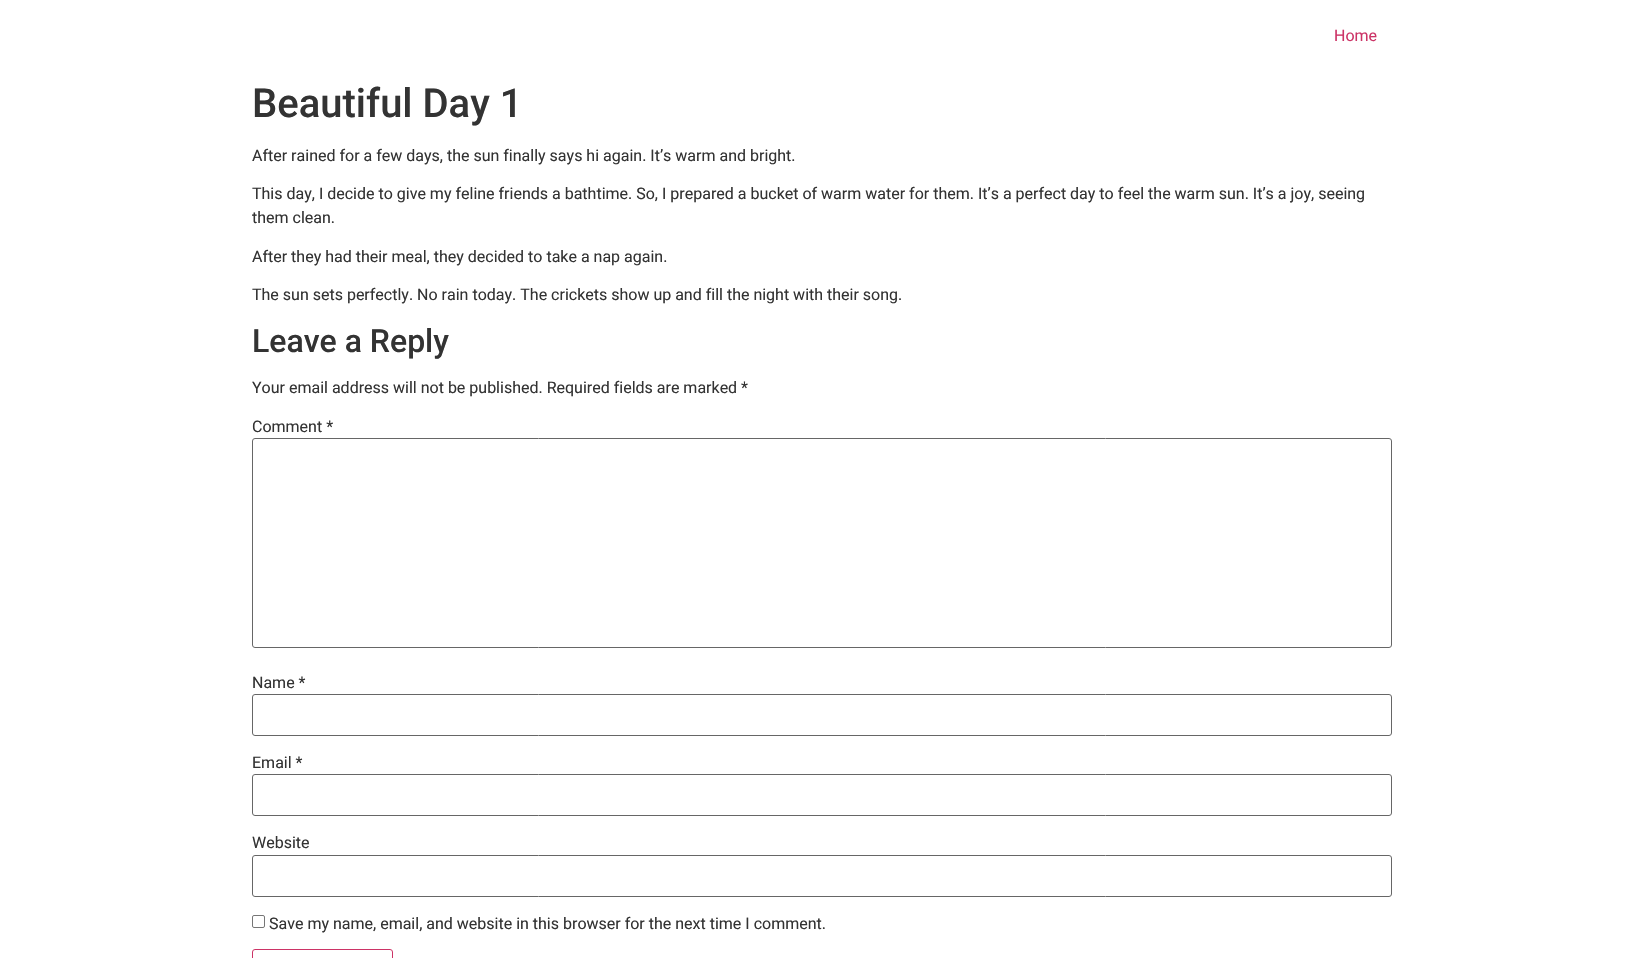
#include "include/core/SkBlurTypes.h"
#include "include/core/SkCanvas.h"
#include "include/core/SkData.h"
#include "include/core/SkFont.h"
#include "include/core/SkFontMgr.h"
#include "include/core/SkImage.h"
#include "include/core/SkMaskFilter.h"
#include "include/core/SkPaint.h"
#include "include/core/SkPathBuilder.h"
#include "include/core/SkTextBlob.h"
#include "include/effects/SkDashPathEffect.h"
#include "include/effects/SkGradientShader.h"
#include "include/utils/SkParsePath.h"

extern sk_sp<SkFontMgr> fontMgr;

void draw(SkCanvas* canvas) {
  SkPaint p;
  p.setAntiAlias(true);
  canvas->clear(SK_ColorWHITE);
  p.setStyle(SkPaint::kStroke_Style);
  p.setStrokeWidth(1);
  p.setColor(SkColorSetRGB(102, 102, 102));
  canvas->drawRoundRect(SkRect::MakeLTRB(252.5f, 438.5f, 1391.5f, 647.5f), 2.5f, 2.5f, p);
  canvas->drawRoundRect(SkRect::MakeLTRB(252.5f, 694.5f, 1391.5f, 735.5f), 2.5f, 2.5f, p);
  canvas->drawRoundRect(SkRect::MakeLTRB(252.5f, 774.5f, 1391.5f, 815.5f), 2.5f, 2.5f, p);
  canvas->drawRoundRect(SkRect::MakeLTRB(252.5f, 855.5f, 1391.5f, 896.5f), 2.5f, 2.5f, p);
  p.setColor(SkColorSetRGB(118, 118, 118));
  canvas->drawRoundRect(SkRect::MakeLTRB(252.5f, 915.5f, 264.5f, 927.5f), 1.5f, 1.5f, p);
  p.setColor(SkColorSetRGB(204, 51, 102));
  canvas->drawRoundRect(SkRect::MakeLTRB(252.5f, 949.5f, 392.5f, 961.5f), 2.5f, 2.5f, p);
  SkFont font1(fontMgr->matchFamilyStyle("Roboto", SkFontStyle::Normal()), 16);
  font1.setSubpixel(true);
  p.setStyle(SkPaint::kFill_Style);
  canvas->drawString("Home", 1334, 41, font1, p);
  SkFont font2(fontMgr->matchFamilyStyle("Roboto", SkFontStyle(500, SkFontStyle::kNormal_Width, SkFontStyle::kUpright_Slant)), 40);
  font2.setSubpixel(true);
  p.setColor(SkColorSetRGB(51, 51, 51));
  canvas->drawString("Beautiful Day 1", 252, 117, font2, p);
  canvas->drawString("After rained for a few days, the sun finally says hi again. It’s warm and bright.", 252, 161, font1, p);
  canvas->drawString("This day, I decide to give my feline friends a bathtime. So, I prepared a bucket of warm water for them. It’s a perfect day to feel the warm sun. It’s a joy, seeing", 252, 199, font1, p);
  canvas->drawString("them clean.", 252, 223, font1, p);
  canvas->drawString("After they had their meal, they decided to take a nap again.", 252, 262, font1, p);
  canvas->drawString("The sun sets perfectly. No rain today. The crickets show up and fill the night with their song.", 252, 300, font1, p);
  SkFont font3(fontMgr->matchFamilyStyle("Roboto", SkFontStyle(500, SkFontStyle::kNormal_Width, SkFontStyle::kUpright_Slant)), 32);
  font3.setSubpixel(true);
  canvas->drawString("Leave a Reply", 252, 352, font3, p);
  canvas->drawString("Your email address will not be published. Required fields are marked *", 252, 393, font1, p);
  canvas->drawString("Comment *", 252, 432, font1, p);
  canvas->drawString("Name *", 252, 688, font1, p);
  canvas->drawString("Email *", 252, 768, font1, p);
  canvas->drawString("Website", 252, 848, font1, p);
  canvas->drawString("Save my name, email, and website in this browser for the next time I comment.", 269, 929, font1, p);
}
